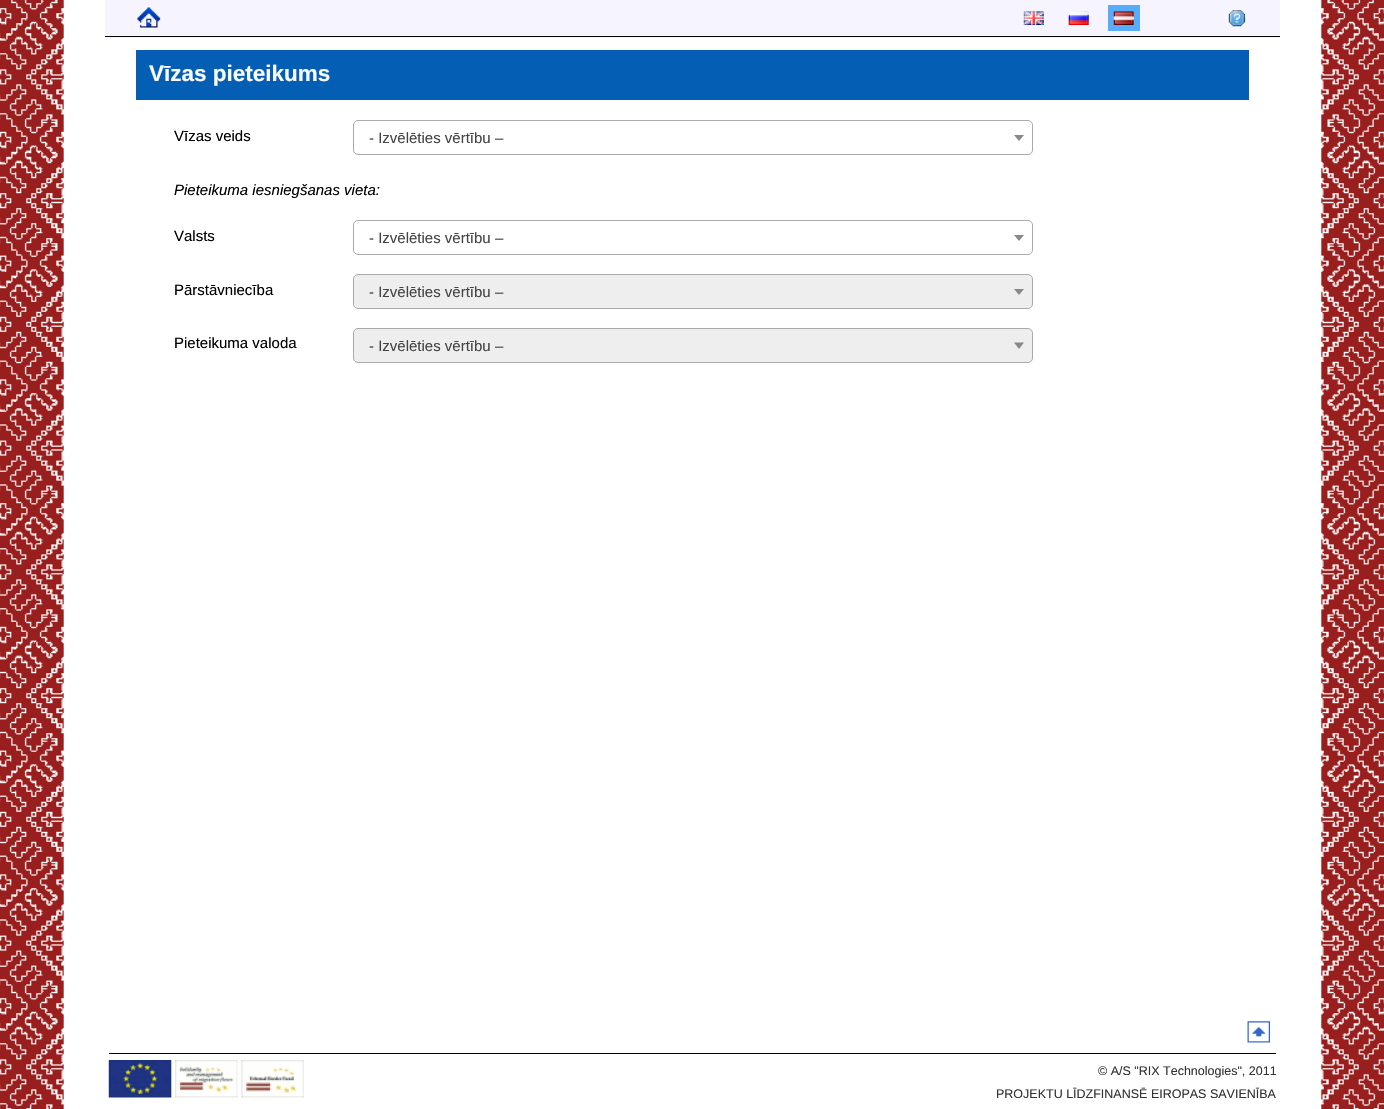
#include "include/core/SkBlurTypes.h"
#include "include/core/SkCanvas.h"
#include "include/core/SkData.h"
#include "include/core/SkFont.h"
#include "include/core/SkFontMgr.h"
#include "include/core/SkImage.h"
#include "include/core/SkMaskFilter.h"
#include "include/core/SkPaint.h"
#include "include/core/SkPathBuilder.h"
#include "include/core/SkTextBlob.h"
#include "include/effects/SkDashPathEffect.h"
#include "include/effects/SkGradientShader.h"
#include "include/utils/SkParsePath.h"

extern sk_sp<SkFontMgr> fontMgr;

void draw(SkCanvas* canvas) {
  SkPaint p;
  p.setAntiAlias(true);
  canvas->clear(SK_ColorWHITE);
  canvas->drawImageRect(SkImages::DeferredFromEncodedData(SkData::MakeFromFileName("images/1.png")), SkRect::MakeLTRB(0, 0, 1384, 1109), SkSamplingOptions());
  p.setColor(SkColorSetRGB(246, 245, 255));
  canvas->drawRect(SkRect::MakeLTRB(105, 0, 1280, 38), p);
  p.setColor(SK_ColorBLACK);
  canvas->drawRect(SkRect::MakeLTRB(105, 36, 1280, 37), p);
  canvas->drawImageRect(SkImages::DeferredFromEncodedData(SkData::MakeFromFileName("images/2.png")), SkRect::MakeLTRB(137, 7, 161, 28), SkSamplingOptions());
  canvas->drawImageRect(SkImages::DeferredFromEncodedData(SkData::MakeFromFileName("images/3.png")), SkRect::MakeLTRB(1023, 11, 1044, 25), SkSamplingOptions());
  canvas->drawImageRect(SkImages::DeferredFromEncodedData(SkData::MakeFromFileName("images/4.png")), SkRect::MakeLTRB(1068, 11, 1089, 25), SkSamplingOptions());
  p.setStyle(SkPaint::kStroke_Style);
  p.setStrokeWidth(6);
  p.setColor(SkColorSetRGB(88, 172, 250));
  canvas->drawRect(SkRect::MakeLTRB(1111, 8, 1137, 28), p);
  canvas->drawImageRect(SkImages::DeferredFromEncodedData(SkData::MakeFromFileName("images/5.png")), SkRect::MakeLTRB(1113, 11, 1134, 25), SkSamplingOptions());
  canvas->drawImageRect(SkImages::DeferredFromEncodedData(SkData::MakeFromFileName("images/6.png")), SkRect::MakeLTRB(1227, 9, 1246, 28), SkSamplingOptions());
  p.setStyle(SkPaint::kFill_Style);
  p.setColor(SkColorSetRGB(4, 95, 180));
  canvas->drawRect(SkRect::MakeLTRB(136, 50, 1249, 100), p);
  p.setStyle(SkPaint::kStroke_Style);
  p.setStrokeWidth(1);
  p.setColor(SkColorSetRGB(170, 170, 170));
  canvas->drawRoundRect(SkRect::MakeLTRB(353.5f, 120.5f, 1032.5f, 154.5f), 4.5f, 4.5f, p);
  p.setStyle(SkPaint::kFill_Style);
  p.setColor(SkColorSetRGB(136, 136, 136));
  canvas->drawPath(SkPathBuilder().moveTo(1014, 135).lineTo(1024, 135).lineTo(1019, 141).close().detach(), p);
  p.setStyle(SkPaint::kStroke_Style);
  p.setColor(SkColorSetRGB(170, 170, 170));
  canvas->drawRoundRect(SkRect::MakeLTRB(353.5f, 220.5f, 1032.5f, 254.5f), 4.5f, 4.5f, p);
  p.setStyle(SkPaint::kFill_Style);
  p.setColor(SkColorSetRGB(136, 136, 136));
  canvas->drawPath(SkPathBuilder().moveTo(1014, 235).lineTo(1024, 235).lineTo(1019, 241).close().detach(), p);
  p.setColor(SkColorSetRGB(238, 238, 238));
  canvas->drawRoundRect(SkRect::MakeLTRB(353.5f, 274.5f, 1032.5f, 308.5f), 4.5f, 4.5f, p);
  p.setStyle(SkPaint::kStroke_Style);
  p.setColor(SkColorSetRGB(170, 170, 170));
  canvas->drawRoundRect(SkRect::MakeLTRB(353.5f, 274.5f, 1032.5f, 308.5f), 4.5f, 4.5f, p);
  p.setStyle(SkPaint::kFill_Style);
  p.setColor(SkColorSetRGB(136, 136, 136));
  canvas->drawPath(SkPathBuilder().moveTo(1014, 289).lineTo(1024, 289).lineTo(1019, 295).close().detach(), p);
  p.setColor(SkColorSetRGB(238, 238, 238));
  canvas->drawRoundRect(SkRect::MakeLTRB(353.5f, 328.5f, 1032.5f, 362.5f), 4.5f, 4.5f, p);
  p.setStyle(SkPaint::kStroke_Style);
  p.setColor(SkColorSetRGB(170, 170, 170));
  canvas->drawRoundRect(SkRect::MakeLTRB(353.5f, 328.5f, 1032.5f, 362.5f), 4.5f, 4.5f, p);
  p.setStyle(SkPaint::kFill_Style);
  p.setColor(SkColorSetRGB(136, 136, 136));
  canvas->drawPath(SkPathBuilder().moveTo(1014, 342.5f).lineTo(1024, 342.5f).lineTo(1019, 349).close().detach(), p);
  p.setColor(SK_ColorBLACK);
  canvas->drawRect(SkRect::MakeLTRB(109, 1053, 1276, 1054), p);
  canvas->drawImageRect(SkImages::DeferredFromEncodedData(SkData::MakeFromFileName("images/7.png")), SkRect::MakeLTRB(1247, 1021, 1270, 1043), SkSamplingOptions());
  canvas->drawImageRect(SkImages::DeferredFromEncodedData(SkData::MakeFromFileName("images/8.png")), SkRect::MakeLTRB(108, 1060, 304, 1098), SkSamplingOptions());
  SkFont font1(fontMgr->matchFamilyStyle("Liberation Sans", SkFontStyle::Bold()), 22.5f);
  font1.setSubpixel(true);
  p.setColor(SkColorSetRGB(250, 251, 255));
  canvas->drawString("Vīzas pieteikums", 149, 81, font1, p);
  SkFont font2(fontMgr->matchFamilyStyle("Liberation Sans", SkFontStyle::Normal()), 15);
  font2.setSubpixel(true);
  p.setColor(SK_ColorBLACK);
  canvas->drawString("Vīzas veids", 174, 141, font2, p);
  p.setColor(SkColorSetRGB(68, 68, 68));
  canvas->drawString("- Izvēlēties vērtību –", 369, 143, font2, p);
  SkFont font3(fontMgr->matchFamilyStyle("Liberation Sans", SkFontStyle::Italic()), 15);
  font3.setSubpixel(true);
  p.setColor(SK_ColorBLACK);
  canvas->drawString("Pieteikuma iesniegšanas vieta:", 174, 195, font3, p);
  canvas->drawString("Valsts", 174, 241, font2, p);
  p.setColor(SkColorSetRGB(68, 68, 68));
  canvas->drawString("- Izvēlēties vērtību –", 369, 243, font2, p);
  p.setColor(SK_ColorBLACK);
  canvas->drawString("Pārstāvniecība", 174, 295, font2, p);
  p.setColor(SkColorSetRGB(68, 68, 68));
  canvas->drawString("- Izvēlēties vērtību –", 369, 297, font2, p);
  p.setColor(SK_ColorBLACK);
  canvas->drawString("Pieteikuma valoda", 174, 348, font2, p);
  p.setColor(SkColorSetRGB(68, 68, 68));
  canvas->drawString("- Izvēlēties vērtību –", 369, 351, font2, p);
  SkFont font4(fontMgr->matchFamilyStyle("Liberation Sans", SkFontStyle::Normal()), 12.5f);
  font4.setSubpixel(true);
  p.setColor(SkColorSetRGB(51, 51, 51));
  canvas->drawString("© A/S \"RIX Technologies\", 2011", 1098, 1075, font4, p);
  canvas->drawString("PROJEKTU LĪDZFINANSĒ EIROPAS SAVIENĪBA", 996, 1098, font4, p);
}
